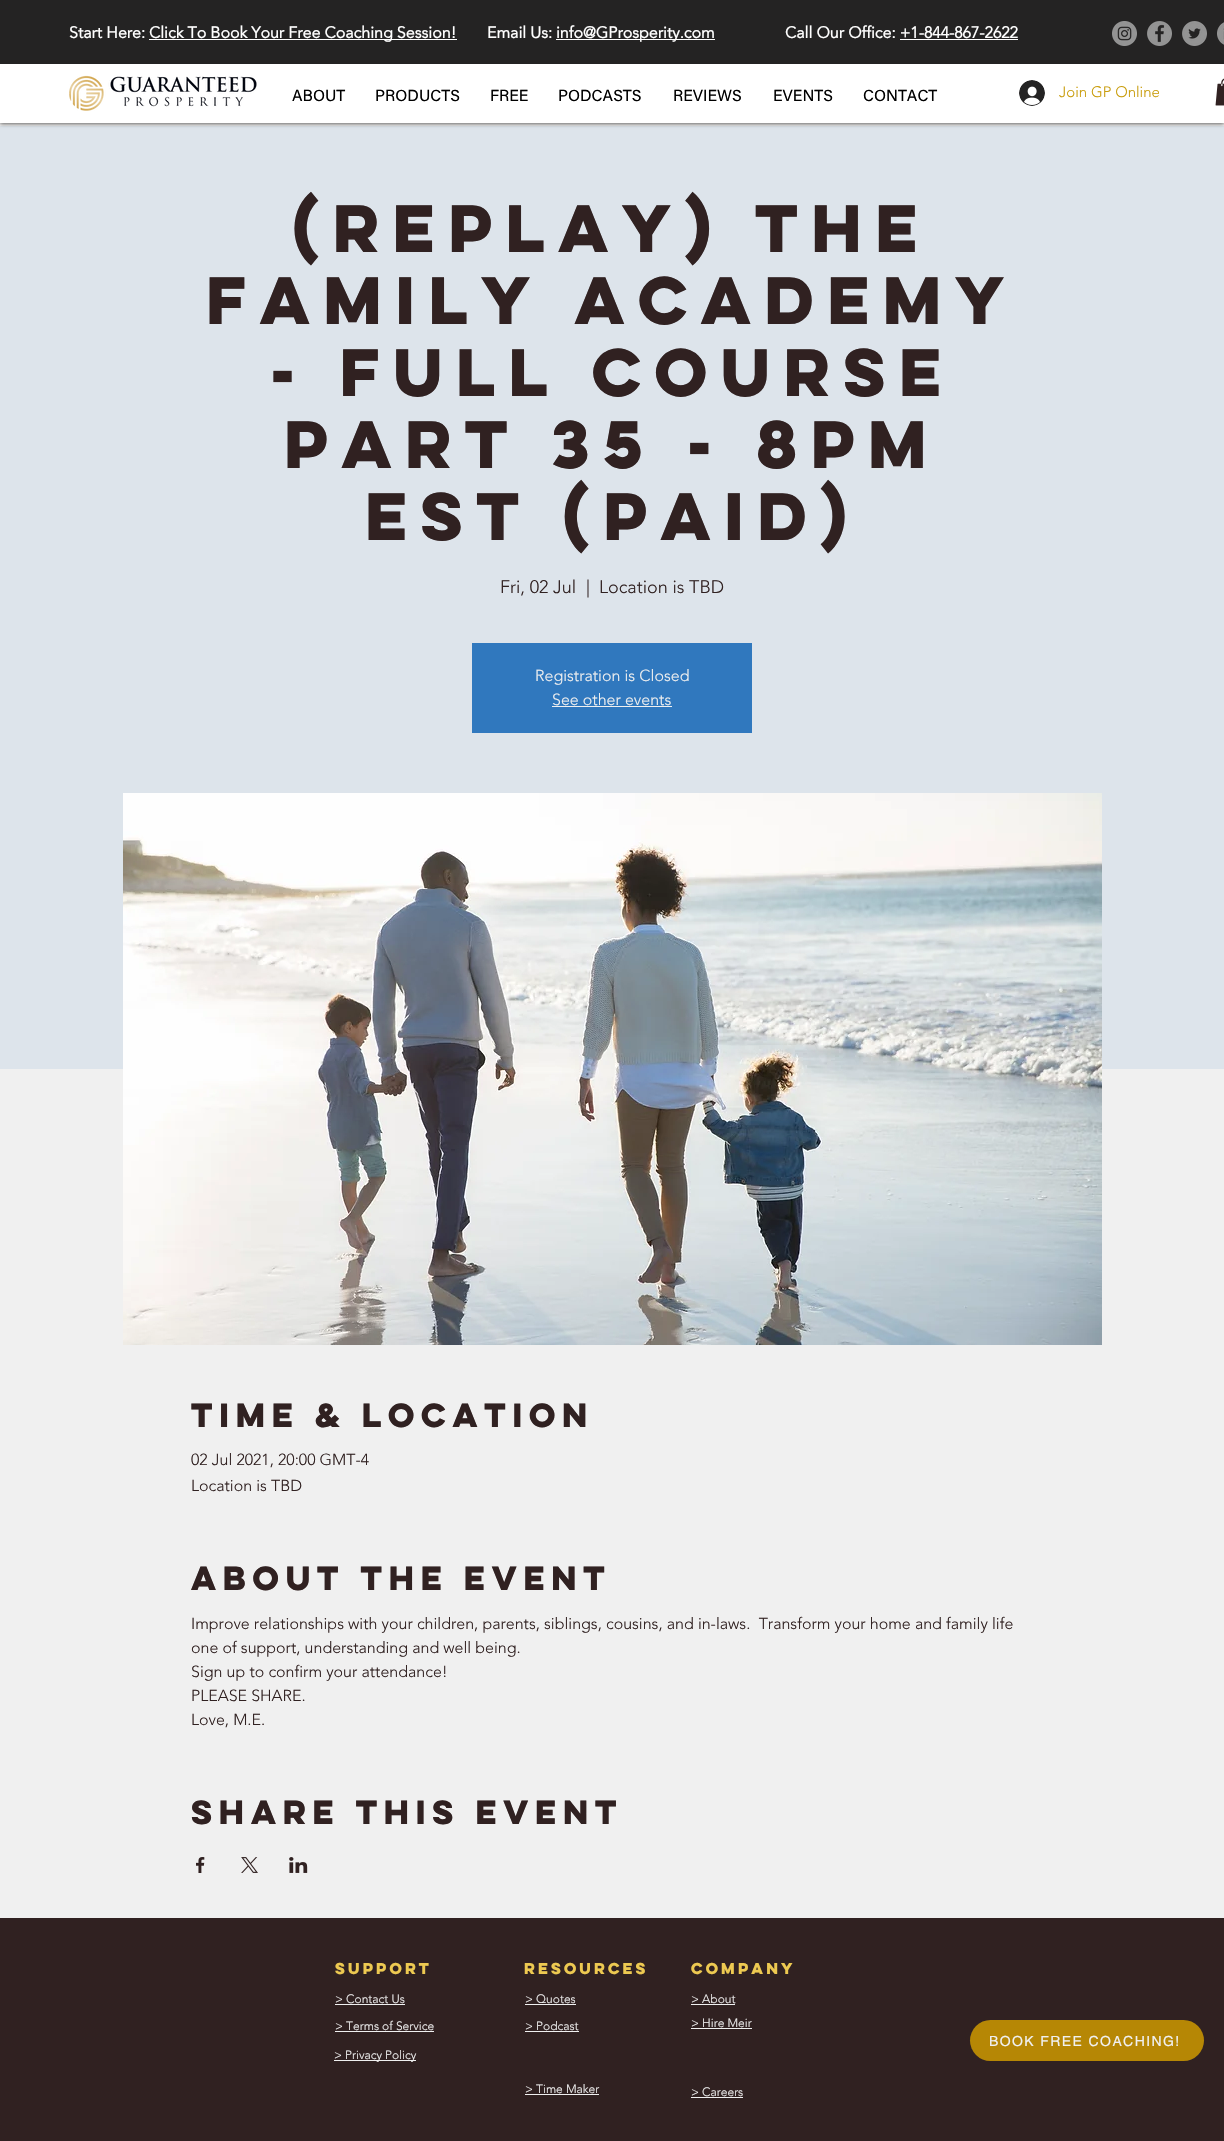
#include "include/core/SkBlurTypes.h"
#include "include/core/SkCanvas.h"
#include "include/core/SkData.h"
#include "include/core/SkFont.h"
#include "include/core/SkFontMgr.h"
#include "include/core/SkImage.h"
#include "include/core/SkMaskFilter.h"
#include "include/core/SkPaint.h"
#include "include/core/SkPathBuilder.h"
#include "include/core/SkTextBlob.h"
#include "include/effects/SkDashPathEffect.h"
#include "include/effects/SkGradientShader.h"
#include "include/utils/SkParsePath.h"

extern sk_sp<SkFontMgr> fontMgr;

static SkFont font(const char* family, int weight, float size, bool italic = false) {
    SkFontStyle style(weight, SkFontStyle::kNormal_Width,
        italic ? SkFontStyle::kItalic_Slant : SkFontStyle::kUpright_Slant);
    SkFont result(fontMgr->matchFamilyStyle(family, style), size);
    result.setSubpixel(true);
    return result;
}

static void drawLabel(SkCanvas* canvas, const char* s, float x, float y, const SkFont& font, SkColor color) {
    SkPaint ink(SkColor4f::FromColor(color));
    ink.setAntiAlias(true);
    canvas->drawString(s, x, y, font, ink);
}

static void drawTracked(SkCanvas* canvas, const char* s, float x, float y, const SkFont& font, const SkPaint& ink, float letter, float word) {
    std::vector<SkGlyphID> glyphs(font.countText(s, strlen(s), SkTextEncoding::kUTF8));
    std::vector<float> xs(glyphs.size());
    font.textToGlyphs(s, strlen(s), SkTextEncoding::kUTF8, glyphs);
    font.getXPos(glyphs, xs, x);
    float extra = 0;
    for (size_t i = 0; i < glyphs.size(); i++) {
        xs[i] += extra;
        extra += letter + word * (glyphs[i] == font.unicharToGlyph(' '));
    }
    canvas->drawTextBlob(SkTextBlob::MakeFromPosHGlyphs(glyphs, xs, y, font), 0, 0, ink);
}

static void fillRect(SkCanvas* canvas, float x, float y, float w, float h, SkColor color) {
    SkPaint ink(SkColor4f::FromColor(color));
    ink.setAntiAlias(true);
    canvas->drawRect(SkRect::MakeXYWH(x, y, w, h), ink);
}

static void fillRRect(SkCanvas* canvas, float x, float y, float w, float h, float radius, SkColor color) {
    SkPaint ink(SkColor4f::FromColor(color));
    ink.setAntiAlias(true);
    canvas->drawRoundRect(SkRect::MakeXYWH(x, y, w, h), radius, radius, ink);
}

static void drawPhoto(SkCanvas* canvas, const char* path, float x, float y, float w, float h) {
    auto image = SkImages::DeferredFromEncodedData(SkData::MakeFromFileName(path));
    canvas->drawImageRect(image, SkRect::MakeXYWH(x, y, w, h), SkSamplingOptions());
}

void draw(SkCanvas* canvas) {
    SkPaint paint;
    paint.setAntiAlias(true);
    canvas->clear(0xFFF0F0F0);
    fillRect(canvas, 0, 126, 1224, 943, 0xFFDDE4EB);
    paint.setColor(0x99000000);
    paint.setMaskFilter(SkMaskFilter::MakeBlur(kNormal_SkBlurStyle, 2));
    canvas->drawRect(SkRect::MakeXYWH(0, 1, 1224, 123), paint);
    paint.setMaskFilter(nullptr);
    fillRect(canvas, 0, 64, 1224, 59, 0xFFFFFFFF);
    fillRect(canvas, 0, 0, 1224, 64, 0xFF242323);
    SkFont font1 = font("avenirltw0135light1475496", 700, 16);
    drawLabel(canvas, "Start Here:", 69, 38, font1, 0xFFFFFFFF);
    fillRect(canvas, 149, 39, 308, 1, 0xFFFFFFFF);
    drawLabel(canvas, "Click To Book Your Free Coaching Session!", 149, 38, font1, 0xFFFFFFFF);
    drawLabel(canvas, "Email Us:", 487, 38, font1, 0xFFFFFFFF);
    fillRect(canvas, 556, 39, 159, 1, 0xFFFFFFFF);
    drawLabel(canvas, "info@GProsperity.com", 556, 38, font1, 0xFFFFFFFF);
    drawLabel(canvas, "Call Our Office: +1-844-867-2622", 785, 38, font1, 0xFFFFFFFF);
    fillRect(canvas, 900, 39, 118, 1, 0xFFFFFFFF);
    drawPhoto(canvas, "assets/img1.png", 1112, 21, 25, 25);
    drawPhoto(canvas, "assets/img2.png", 1147, 21, 25, 25);
    drawPhoto(canvas, "assets/img3.png", 1182, 21, 25, 25);
    drawPhoto(canvas, "assets/img4.png", 1217, 22, 7, 23);
    drawPhoto(canvas, "assets/img5.png", 69, 75, 188, 36);
    SkFont font2 = font("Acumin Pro", 400, 16);
    drawLabel(canvas, "ABOUT", 292, 101, font2, 0xFF000000);
    drawLabel(canvas, "PRODUCTS", 375, 101, font2, 0xFF000000);
    drawLabel(canvas, "FREE", 490, 101, font2, 0xFF000000);
    drawLabel(canvas, "PODCASTS", 558, 101, font2, 0xFF000000);
    drawLabel(canvas, "REVIEWS", 673, 101, font2, 0xFF000000);
    drawLabel(canvas, "EVENTS", 773, 101, font2, 0xFF000000);
    drawLabel(canvas, "CONTACT", 863, 101, font2, 0xFF000000);
    drawPhoto(canvas, "assets/img6.png", 1019, 80, 26, 26);
    SkFont font3 = font("avenirltw0135light1475496", 300, 15);
    drawLabel(canvas, "Join GP Online", 1059, 97, font3, 0xFFC99D0C);
    drawPhoto(canvas, "assets/img7.png", 1215, 78, 9, 28);
    SkFont font4 = font("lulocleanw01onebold", 700, 60);
    drawLabel(canvas, "(REPLAY) The", 293, 252, font4, 0xFF302121);
    drawLabel(canvas, "Family Academy", 206, 324, font4, 0xFF302121);
    drawLabel(canvas, "- Full Course", 270, 396, font4, 0xFF302121);
    drawLabel(canvas, "Part 35 - 8PM", 284, 468, font4, 0xFF302121);
    drawLabel(canvas, "EST (Paid)", 365, 540, font4, 0xFF302121);
    SkFont font5 = font("avenirltw0135light1475496", 300, 18);
    drawLabel(canvas, "Fri, 02 Jul", 500, 593, font5, 0xFF302121);
    drawLabel(canvas, "|", 586, 593, font5, 0xFF302121);
    drawLabel(canvas, "Location is TBD", 599, 593, font5, 0xFF302121);
    fillRect(canvas, 472, 643, 280, 90, 0xFF3078BE);
    SkFont font6 = font("avenirltw0135light1475496", 300, 16);
    drawLabel(canvas, "Registration is Closed", 535, 681, font6, 0xFFF0F0F0);
    drawLabel(canvas, "See other events", 552, 705, font6, 0xFFF0F0F0);
    fillRect(canvas, 552, 706, 120, 1, 0xFFF0F0F0);
    drawPhoto(canvas, "assets/img8.png", 123, 793, 979, 552);
    SkFont font7 = font("lulocleanw01onebold", 700, 30);
    drawLabel(canvas, "Time & Location", 191, 1427, font7, 0xFF302121);
    drawLabel(canvas, "02 Jul 2021, 20:00 GMT-4", 191, 1465, font6, 0xFF302121);
    drawLabel(canvas, "Location is TBD", 191, 1491, font6, 0xFF302121);
    drawLabel(canvas, "About the event", 191, 1590, font7, 0xFF302121);
    drawLabel(canvas, "Improve relationships with your children, parents, siblings, cousins, and in-laws.  Transform your home and family life", 191, 1629, font6, 0xFF302121);
    drawLabel(canvas, "one of support, understanding and well being.", 191, 1653, font6, 0xFF302121);
    drawLabel(canvas, "Sign up to confirm your attendance!", 191, 1677, font6, 0xFF302121);
    drawLabel(canvas, "PLEASE SHARE.", 191, 1701, font6, 0xFF302121);
    drawLabel(canvas, "Love, M.E.", 191, 1725, font6, 0xFF302121);
    drawLabel(canvas, "Share this event", 191, 1824, font7, 0xFF302121);
    drawPhoto(canvas, "assets/img9.png", 196, 1857, 9, 16);
    drawPhoto(canvas, "assets/img10.png", 241, 1857, 17, 16);
    drawPhoto(canvas, "assets/img11.png", 289, 1857, 19, 16);
    fillRect(canvas, 0, 1918, 1224, 223, 0xFF302121);
    SkFont font8 = font("lulocleanw01onebold", 700, 14);
    drawLabel(canvas, "SUPPORT", 335, 1974, font8, 0xFFEDC951);
    drawLabel(canvas, "RESOURCES", 524, 1974, font8, 0xFFEDC951);
    drawLabel(canvas, "Company", 691, 1974, font8, 0xFFEDC951);
    SkFont font9 = font("avenirltw0135light1475496", 300, 12);
    drawLabel(canvas, "> Contact Us", 335, 2003, font9, 0xFFF0F0F0);
    fillRect(canvas, 335, 2004, 70, 1, 0xFFF0F0F0);
    drawLabel(canvas, "> Quotes", 525, 2003, font9, 0xFFF0F0F0);
    fillRect(canvas, 525, 2004, 51, 1, 0xFFF0F0F0);
    drawLabel(canvas, "> About", 691, 2003, font9, 0xFFF0F0F0);
    fillRect(canvas, 691, 2004, 44, 1, 0xFFF0F0F0);
    drawLabel(canvas, "> Terms of Service", 335, 2030, font9, 0xFFF0F0F0);
    fillRect(canvas, 335, 2031, 99, 1, 0xFFF0F0F0);
    drawLabel(canvas, "> Podcast", 525, 2030, font9, 0xFFF0F0F0);
    fillRect(canvas, 525, 2031, 54, 1, 0xFFF0F0F0);
    drawLabel(canvas, "> Hire Meir", 691, 2027, font9, 0xFFF0F0F0);
    fillRect(canvas, 691, 2028, 61, 1, 0xFFF0F0F0);
    drawLabel(canvas, "> Time Maker", 525, 2093, font9, 0xFFF0F0F0);
    fillRect(canvas, 525, 2094, 74, 1, 0xFFF0F0F0);
    drawLabel(canvas, "> Careers", 691, 2096, font9, 0xFFF0F0F0);
    fillRect(canvas, 691, 2097, 52, 1, 0xFFF0F0F0);
    fillRect(canvas, 334, 2060, 82, 1, 0xFFF0F0F0);
    drawLabel(canvas, "> Privacy Policy", 334, 2059, font9, 0xFFF0F0F0);
    fillRRect(canvas, 970, 2020, 234, 41, 20.5f, 0xFFB68705);
    SkFont font10 = font("helvetica", 400, 14);
    paint.setColor(0xFFF0F0F0);
    drawTracked(canvas, "BOOK FREE COACHING!", 989, 2046, font10, paint, 1.4f, 0);
}
